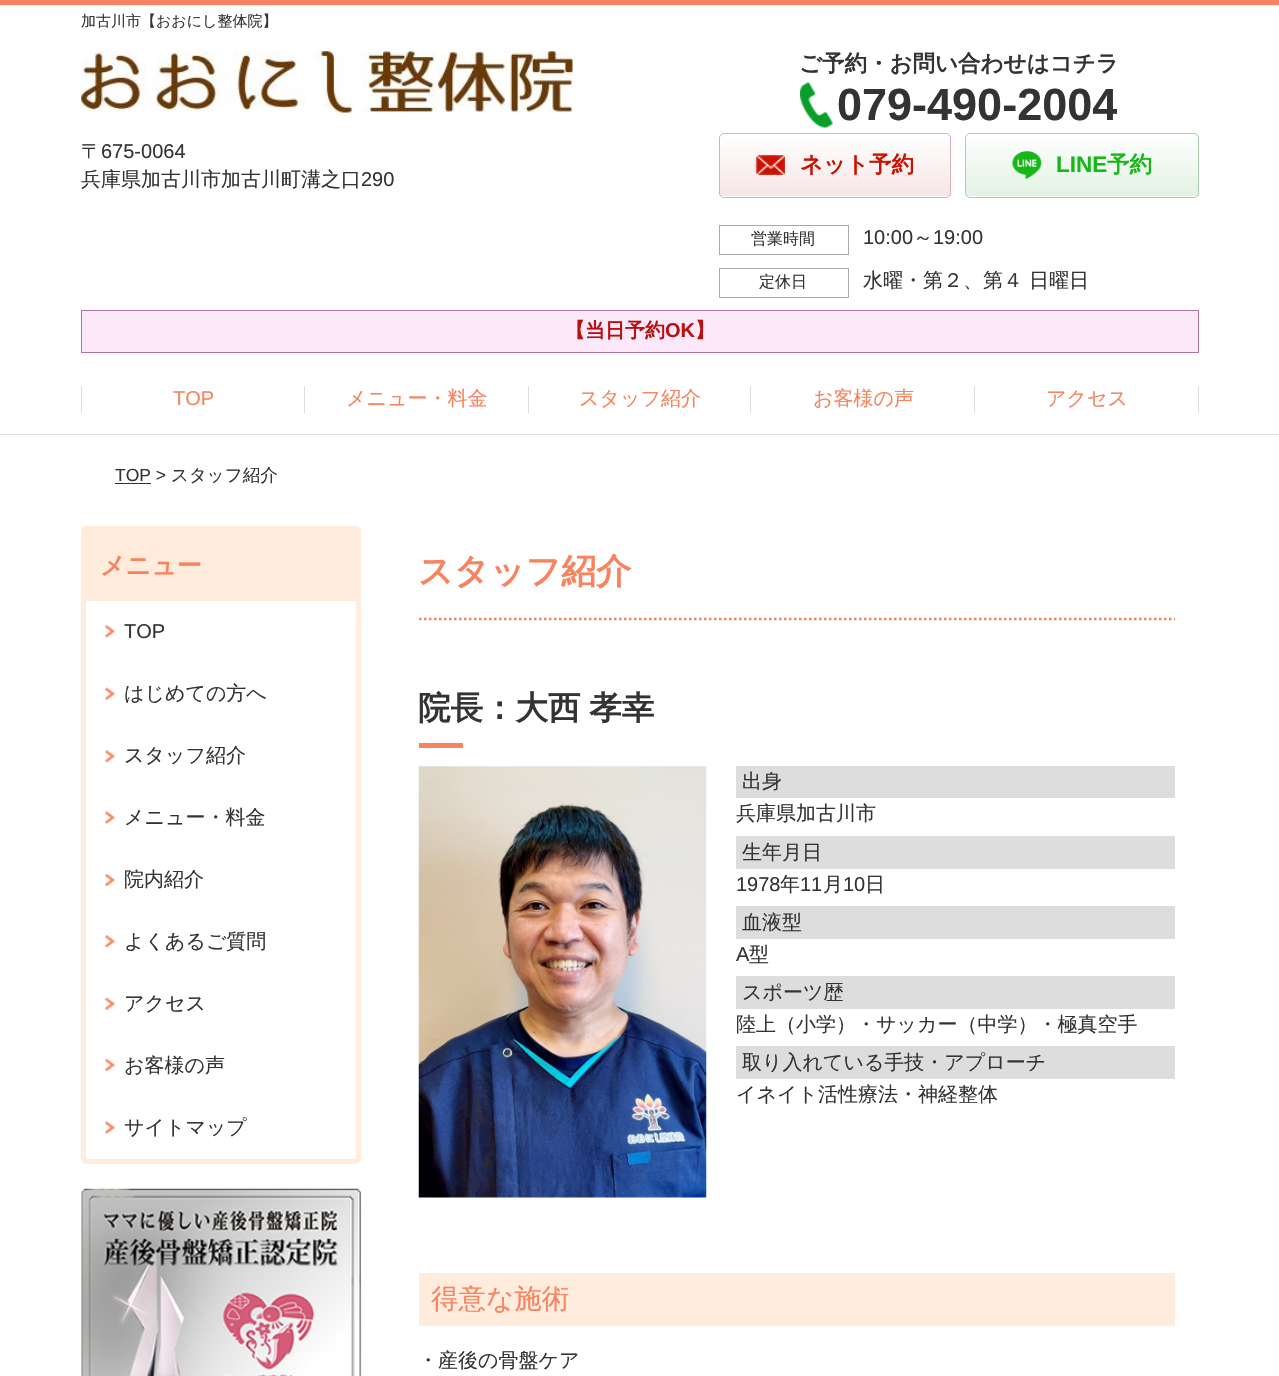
#include "include/core/SkBlurTypes.h"
#include "include/core/SkCanvas.h"
#include "include/core/SkData.h"
#include "include/core/SkFont.h"
#include "include/core/SkFontMgr.h"
#include "include/core/SkImage.h"
#include "include/core/SkMaskFilter.h"
#include "include/core/SkPaint.h"
#include "include/core/SkPathBuilder.h"
#include "include/core/SkTextBlob.h"
#include "include/effects/SkDashPathEffect.h"
#include "include/effects/SkGradientShader.h"
#include "include/utils/SkParsePath.h"

extern sk_sp<SkFontMgr> fontMgr;

static SkFont font(const char* family, int weight, float size, bool italic = false) {
    SkFontStyle style(weight, SkFontStyle::kNormal_Width,
        italic ? SkFontStyle::kItalic_Slant : SkFontStyle::kUpright_Slant);
    SkFont result(fontMgr->matchFamilyStyle(family, style), size);
    result.setSubpixel(true);
    return result;
}

static void drawLabel(SkCanvas* canvas, const char* s, float x, float y, const SkFont& font, SkColor color) {
    SkPaint ink(SkColor4f::FromColor(color));
    ink.setAntiAlias(true);
    canvas->drawString(s, x, y, font, ink);
}

static void drawTracked(SkCanvas* canvas, const char* s, float x, float y, const SkFont& font, const SkPaint& ink, float letter, float word) {
    std::vector<SkGlyphID> glyphs(font.countText(s, strlen(s), SkTextEncoding::kUTF8));
    std::vector<float> xs(glyphs.size());
    font.textToGlyphs(s, strlen(s), SkTextEncoding::kUTF8, glyphs);
    font.getXPos(glyphs, xs, x);
    float extra = 0;
    for (size_t i = 0; i < glyphs.size(); i++) {
        xs[i] += extra;
        extra += letter + word * (glyphs[i] == font.unicharToGlyph(' '));
    }
    canvas->drawTextBlob(SkTextBlob::MakeFromPosHGlyphs(glyphs, xs, y, font), 0, 0, ink);
}

static void fillRect(SkCanvas* canvas, float x, float y, float w, float h, SkColor color) {
    SkPaint ink(SkColor4f::FromColor(color));
    ink.setAntiAlias(true);
    canvas->drawRect(SkRect::MakeXYWH(x, y, w, h), ink);
}

static void drawPhoto(SkCanvas* canvas, const char* path, float x, float y, float w, float h) {
    auto image = SkImages::DeferredFromEncodedData(SkData::MakeFromFileName(path));
    canvas->drawImageRect(image, SkRect::MakeXYWH(x, y, w, h), SkSamplingOptions());
}

static SkPath parsePath(const char* data, bool evenOdd = false) {
    SkPath result = *SkParsePath::FromSVGString(data);
    if (evenOdd) result.setFillType(SkPathFillType::kEvenOdd);
    return result;
}

void draw(SkCanvas* canvas) {
    SkPaint paint;
    paint.setAntiAlias(true);
    canvas->clear(0xFFFFFFFF);
    fillRect(canvas, 0, 0, 1279, 5, 0xFFF7835F);
    SkFont font1 = font("WenQuanYi Zen Hei", 500, 15);
    drawLabel(canvas, "加古川市【おおにし整体院】", 81, 26, font1, 0xFF333333);
    drawPhoto(canvas, "assets/img1.png", 81, 51, 492, 62);
    SkFont font2 = font("WenQuanYi Zen Hei", 500, 20);
    drawLabel(canvas, "〒", 81, 158, font2, 0xFF333333);
    SkFont font3 = font("Liberation Sans", 400, 20);
    drawLabel(canvas, "675-0064", 101, 158, font3, 0xFF333333);
    drawLabel(canvas, "兵庫県加古川市加古川町溝之口", 81, 186, font2, 0xFF333333);
    drawLabel(canvas, "290", 361, 186, font3, 0xFF333333);
    SkFont font4 = font("WenQuanYi Zen Hei", 700, 22.5f);
    drawLabel(canvas, "ご予約・お問い合わせはコチラ", 799, 71, font4, 0xFF333333);
    drawPhoto(canvas, "assets/img2.png", 800, 82, 33, 46);
    SkFont font5 = font("Liberation Sans", 700, 45);
    drawLabel(canvas, "079-490-2004", 837, 120, font5, 0xFF333333);
    canvas->save();
    canvas->clipPath(parsePath("M724 133H946C949 133 951 135 951 138V193C951 196 949 198 946 198H724C721 198 719 196 719 193V138C719 135 721 133 724 133Z"), true);
    {
        const SkColor colors[] = {0xFFFFFFFF, 0xFFF5E6E5};
        const float stops[] = {0, 1};
        const SkPoint ends[] = {{835, 134}, {835, 196}};
        paint.setShader(SkGradientShader::MakeLinear(ends, colors, stops, 2, SkTileMode::kClamp));
        paint.setAlpha(255);
    }
    canvas->drawRect(SkRect::MakeXYWH(719, 134, 232, 62), paint);
    canvas->restore();
    paint.setStroke(true);
    paint.setStrokeWidth(1);
    paint.setShader(nullptr);
    paint.setColor(0xFFD8B0AD);
    canvas->drawRoundRect(SkRect::MakeXYWH(719.5f, 133.5f, 231, 64), 4.5f, 4.5f, paint);
    drawPhoto(canvas, "assets/img3.png", 756, 155, 29, 20);
    drawLabel(canvas, "ネット予約", 800, 172, font4, 0xFFCC1100);
    canvas->save();
    canvas->clipPath(parsePath("M970 133H1194C1197 133 1199 135 1199 138V193C1199 196 1197 198 1194 198H970C967 198 965 196 965 193V138C965 135 967 133 970 133Z"), true);
    paint.setStroke(false);
    {
        const SkColor colors[] = {0xFFFFFFFF, 0xFFE2F2E3};
        const float stops[] = {0, 1};
        const SkPoint ends[] = {{1082, 134}, {1082, 196}};
        paint.setShader(SkGradientShader::MakeLinear(ends, colors, stops, 2, SkTileMode::kClamp));
        paint.setAlpha(255);
    }
    canvas->drawRect(SkRect::MakeXYWH(965, 134, 234, 62), paint);
    canvas->restore();
    paint.setStroke(true);
    paint.setShader(nullptr);
    paint.setColor(0xFFABCBAE);
    canvas->drawRoundRect(SkRect::MakeXYWH(965.5f, 133.5f, 233, 64), 4.5f, 4.5f, paint);
    drawPhoto(canvas, "assets/img4.png", 1012, 151, 30, 28);
    SkFont font6 = font("Liberation Sans", 700, 22.5f);
    drawLabel(canvas, "LINE", 1056, 172, font6, 0xFF15B817);
    drawLabel(canvas, "予約", 1107, 172, font4, 0xFF15B817);
    paint.setColor(0xFFAAAAAA);
    canvas->drawRect(SkRect::MakeXYWH(719.5f, 225.5f, 129, 29), paint);
    SkFont font7 = font("WenQuanYi Zen Hei", 500, 16);
    drawLabel(canvas, "営業時間", 751, 244, font7, 0xFF333333);
    drawLabel(canvas, "10:00", 863, 244, font3, 0xFF333333);
    drawLabel(canvas, "～", 913, 244, font2, 0xFF333333);
    drawLabel(canvas, "19:00", 933, 244, font3, 0xFF333333);
    canvas->drawRect(SkRect::MakeXYWH(719.5f, 268.5f, 129, 29), paint);
    drawLabel(canvas, "定休日", 759, 287, font7, 0xFF333333);
    drawLabel(canvas, "水曜・第２、第４ 日曜日", 863, 287, font2, 0xFF333333);
    paint.setStroke(false);
    paint.setColor(0xFFFBE9F9);
    canvas->drawRect(SkRect::MakeXYWH(81.5f, 310.5f, 1117, 42), paint);
    paint.setStroke(true);
    paint.setColor(0xFFAF779C);
    canvas->drawRect(SkRect::MakeXYWH(81.5f, 310.5f, 1117, 42), paint);
    SkFont font8 = font("WenQuanYi Zen Hei", 700, 20);
    drawLabel(canvas, "【当日予約", 565, 337, font8, 0xFFBB0F0F);
    SkFont font9 = font("Liberation Sans", 700, 20);
    drawLabel(canvas, "OK", 665, 337, font9, 0xFFBB0F0F);
    drawLabel(canvas, "】", 695, 337, font8, 0xFFBB0F0F);
    fillRect(canvas, 0, 434, 1279, 1, 0xFFDDDDDD);
    fillRect(canvas, 81, 386, 1, 27, 0xFFDDDDDD);
    drawLabel(canvas, "TOP", 173, 405, font3, 0xFFF7835F);
    fillRect(canvas, 304, 386, 1, 27, 0xFFDDDDDD);
    drawLabel(canvas, "メニュー・料金", 346, 405, font2, 0xFFF7835F);
    fillRect(canvas, 528, 386, 1, 27, 0xFFDDDDDD);
    drawLabel(canvas, "スタッフ紹介", 579, 405, font2, 0xFFF7835F);
    fillRect(canvas, 750, 386, 1, 27, 0xFFDDDDDD);
    drawLabel(canvas, "お客様の声", 813, 405, font2, 0xFFF7835F);
    fillRect(canvas, 974, 386, 1, 27, 0xFFDDDDDD);
    drawLabel(canvas, "アクセス", 1046, 405, font2, 0xFFF7835F);
    fillRect(canvas, 1198, 386, 1, 27, 0xFFDDDDDD);
    SkFont font10 = font("Liberation Sans", 400, 17.5f);
    drawLabel(canvas, "TOP >", 115, 481, font10, 0xFF333333);
    fillRect(canvas, 115, 483, 36, 1, 0xFF333333);
    SkFont font11 = font("WenQuanYi Zen Hei", 500, 17.5f);
    drawLabel(canvas, "スタッフ紹介", 171, 481, font11, 0xFF333333);
    paint.setStroke(false);
    paint.setColor(0xFFFFECDC);
    canvas->drawRoundRect(SkRect::MakeXYWH(83.5f, 528.5f, 275, 633), 2.5f, 2.5f, paint);
    paint.setStroke(true);
    paint.setStrokeWidth(5);
    canvas->drawRoundRect(SkRect::MakeXYWH(83.5f, 528.5f, 275, 633), 2.5f, 2.5f, paint);
    SkFont font12 = font("WenQuanYi Zen Hei", 700, 25);
    drawLabel(canvas, "メニュー", 100, 574, font12, 0xFFF7835F);
    fillRect(canvas, 86, 601, 270, 558, 0xFFFFFFFF);
    drawPhoto(canvas, "assets/img5.png", 105, 625, 10, 13);
    drawLabel(canvas, "TOP", 124, 638, font3, 0xFF333333);
    drawPhoto(canvas, "assets/img6.png", 105, 687, 10, 13);
    drawLabel(canvas, "はじめての方へ", 124, 700, font2, 0xFF333333);
    drawPhoto(canvas, "assets/img5.png", 105, 750, 10, 13);
    drawLabel(canvas, "スタッフ紹介", 124, 762, font2, 0xFF333333);
    drawPhoto(canvas, "assets/img7.png", 105, 811, 10, 13);
    drawLabel(canvas, "メニュー・料金", 124, 824, font2, 0xFF333333);
    drawPhoto(canvas, "assets/img8.png", 105, 873, 10, 14);
    drawLabel(canvas, "院内紹介", 124, 886, font2, 0xFF333333);
    drawPhoto(canvas, "assets/img5.png", 105, 935, 10, 13);
    drawLabel(canvas, "よくあるご質問", 124, 948, font2, 0xFF333333);
    drawPhoto(canvas, "assets/img6.png", 105, 997, 10, 13);
    drawLabel(canvas, "アクセス", 124, 1010, font2, 0xFF333333);
    drawPhoto(canvas, "assets/img8.png", 105, 1058, 10, 14);
    drawLabel(canvas, "お客様の声", 124, 1072, font2, 0xFF333333);
    drawPhoto(canvas, "assets/img7.png", 105, 1121, 10, 13);
    drawLabel(canvas, "サイトマップ", 124, 1134, font2, 0xFF333333);
    drawPhoto(canvas, "assets/img9.png", 81, 1188, 281, 188);
    paint.setStrokeWidth(2.5f);
    paint.setColor(0xFFF7835F);
    paint.setPathEffect(SkDashPathEffect::Make({{2.5f, 2.5f}}, 0));
    canvas->drawPath(parsePath("M419 619H1175"), paint);
    paint.setPathEffect(nullptr);
    SkFont font13 = font("WenQuanYi Zen Hei", 700, 35);
    drawLabel(canvas, "スタッフ紹介", 418, 583, font13, 0xFFF7835F);
    SkFont font14 = font("WenQuanYi Zen Hei", 700, 32.5f);
    paint.setStroke(false);
    paint.setColor(0xFF333333);
    drawTracked(canvas, "院長：大西 孝幸", 418, 719, font14, paint, 0, -1);
    fillRect(canvas, 419, 743, 44, 5, 0xFFF7835F);
    drawPhoto(canvas, "assets/img10.png", 418, 766, 289, 432);
    fillRect(canvas, 736, 766, 439, 32, 0xFFDDDDDD);
    drawLabel(canvas, "出身", 742, 788, font2, 0xFF333333);
    drawLabel(canvas, "兵庫県加古川市", 736, 820, font2, 0xFF333333);
    fillRect(canvas, 736, 836, 439, 33, 0xFFDDDDDD);
    drawLabel(canvas, "生年月日", 742, 859, font2, 0xFF333333);
    drawLabel(canvas, "1978", 736, 891, font3, 0xFF333333);
    drawLabel(canvas, "年", 780, 891, font2, 0xFF333333);
    drawLabel(canvas, "11", 800, 891, font3, 0xFF333333);
    drawLabel(canvas, "月", 823, 891, font2, 0xFF333333);
    drawLabel(canvas, "10", 843, 891, font3, 0xFF333333);
    drawLabel(canvas, "日", 865, 891, font2, 0xFF333333);
    fillRect(canvas, 736, 906, 439, 33, 0xFFDDDDDD);
    drawLabel(canvas, "血液型", 742, 929, font2, 0xFF333333);
    drawLabel(canvas, "A", 736, 961, font3, 0xFF333333);
    drawLabel(canvas, "型", 749, 961, font2, 0xFF333333);
    fillRect(canvas, 736, 976, 439, 33, 0xFFDDDDDD);
    drawLabel(canvas, "スポーツ歴", 742, 999, font2, 0xFF333333);
    drawLabel(canvas, "陸上（小学）・サッカー（中学）・極真空手", 736, 1031, font2, 0xFF333333);
    fillRect(canvas, 736, 1046, 439, 33, 0xFFDDDDDD);
    drawLabel(canvas, "取り入れている手技・アプローチ", 742, 1069, font2, 0xFF333333);
    drawLabel(canvas, "イネイト活性療法・神経整体", 736, 1101, font2, 0xFF333333);
    fillRect(canvas, 419, 1273, 756, 53, 0xFFFFECDC);
    SkFont font15 = font("WenQuanYi Zen Hei", 500, 27.5f);
    drawLabel(canvas, "得意な施術", 431, 1308, font15, 0xFFF7835F);
    drawLabel(canvas, "・産後の骨盤ケア", 418, 1367, font2, 0xFF333333);
}
